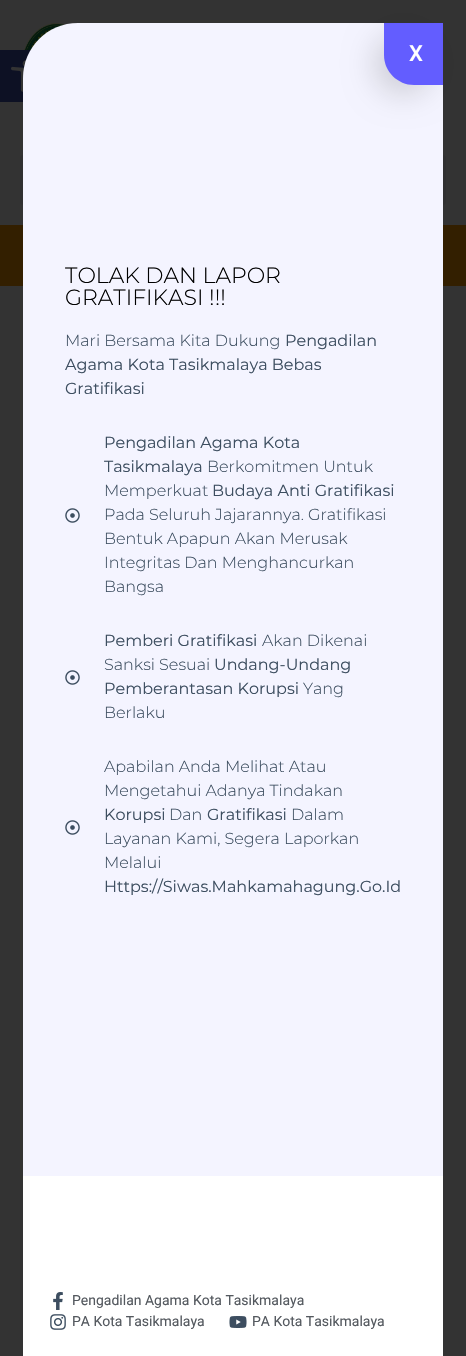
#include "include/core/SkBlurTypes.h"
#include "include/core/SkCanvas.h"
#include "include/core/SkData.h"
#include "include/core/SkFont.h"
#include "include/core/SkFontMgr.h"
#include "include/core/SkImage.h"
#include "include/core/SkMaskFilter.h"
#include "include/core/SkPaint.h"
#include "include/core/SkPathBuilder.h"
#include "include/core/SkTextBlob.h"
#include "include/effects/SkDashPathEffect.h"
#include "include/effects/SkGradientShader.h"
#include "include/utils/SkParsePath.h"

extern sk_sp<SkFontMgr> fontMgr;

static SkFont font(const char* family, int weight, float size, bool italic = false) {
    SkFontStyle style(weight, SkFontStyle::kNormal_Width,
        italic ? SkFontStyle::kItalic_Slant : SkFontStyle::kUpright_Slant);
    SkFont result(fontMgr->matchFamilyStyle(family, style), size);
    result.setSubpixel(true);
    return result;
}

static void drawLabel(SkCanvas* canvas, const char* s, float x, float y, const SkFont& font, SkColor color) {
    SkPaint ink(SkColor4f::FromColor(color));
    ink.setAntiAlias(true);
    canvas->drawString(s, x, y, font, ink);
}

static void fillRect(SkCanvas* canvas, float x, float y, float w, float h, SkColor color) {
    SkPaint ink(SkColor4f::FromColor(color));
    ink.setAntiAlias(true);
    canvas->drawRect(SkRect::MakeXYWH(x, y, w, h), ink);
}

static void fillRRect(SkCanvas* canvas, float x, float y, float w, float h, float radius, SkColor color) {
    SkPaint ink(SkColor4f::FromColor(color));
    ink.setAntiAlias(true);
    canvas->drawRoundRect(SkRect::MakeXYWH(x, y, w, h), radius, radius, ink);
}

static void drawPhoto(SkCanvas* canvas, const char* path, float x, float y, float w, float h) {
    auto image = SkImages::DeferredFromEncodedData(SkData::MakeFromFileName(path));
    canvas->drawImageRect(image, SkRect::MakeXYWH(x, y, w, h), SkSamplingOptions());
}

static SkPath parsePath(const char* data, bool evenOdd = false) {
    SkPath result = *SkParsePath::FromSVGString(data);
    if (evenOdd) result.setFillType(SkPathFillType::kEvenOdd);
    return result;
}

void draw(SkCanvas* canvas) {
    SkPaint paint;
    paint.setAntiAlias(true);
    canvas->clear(0xFF333333);
    drawPhoto(canvas, "assets/img1.png", 24, 23, 43, 27);
    fillRRect(canvas, 20, 155, 426, 50, 3, 0xFF303031);
    fillRect(canvas, 0, 225, 466, 61, 0xFF331F00);
    fillRect(canvas, 0, 50, 31, 52, 0xFF0D1124);
    drawPhoto(canvas, "assets/img2.png", 11, 60, 16, 32);
    paint.setColor(0xFFF4F4FF);
    canvas->drawPath(parsePath("M78 23H443V1176H23V78C23 47.5 47.5 23 78 23Z"), paint);
    paint.setColor(0x26000000);
    paint.setMaskFilter(SkMaskFilter::MakeBlur(kNormal_SkBlurStyle, 15));
    canvas->drawRoundRect(SkRect::MakeXYWH(374, 33, 59, 62), 30, 30, paint);
    paint.setMaskFilter(nullptr);
    paint.setColor(0xFF635DFF);
    canvas->drawPath(parsePath("M384 23H443V85H414C397.5 85 384 71.5 384 55Z"), paint);
    SkFont font1 = font("Roboto", 500, 22);
    drawLabel(canvas, "X", 409, 61, font1, 0xFFFFFFFF);
    SkFont font2 = font("Montserrat", 300, 22);
    drawLabel(canvas, "TOLAK DAN LAPOR", 65, 283, font2, 0xFF000000);
    drawLabel(canvas, "GRATIFIKASI !!!", 65, 305, font2, 0xFF000000);
    SkFont font3 = font("Montserrat", 300, 16);
    drawLabel(canvas, "Mari Bersama Kita Dukung", 65, 346, font3, 0xFF3D4E60);
    SkFont font4 = font("Montserrat", 400, 16);
    drawLabel(canvas, "Pengadilan", 285, 346, font4, 0xFF3D4E60);
    drawLabel(canvas, "Agama Kota Tasikmalaya Bebas", 65, 370, font4, 0xFF3D4E60);
    drawLabel(canvas, "Gratifikasi", 65, 394, font4, 0xFF3D4E60);
    drawPhoto(canvas, "assets/img3.png", 65, 508, 15, 15);
    drawLabel(canvas, "Pengadilan Agama Kota", 104, 448, font4, 0xFF3D4E60);
    drawLabel(canvas, "Tasikmalaya", 104, 472, font4, 0xFF3D4E60);
    drawLabel(canvas, "Berkomitmen Untuk", 207, 472, font3, 0xFF3D4E60);
    drawLabel(canvas, "Memperkuat", 104, 496, font3, 0xFF3D4E60);
    drawLabel(canvas, "Budaya Anti Gratifikasi", 212, 496, font4, 0xFF3D4E60);
    drawLabel(canvas, "Pada Seluruh Jajarannya. Gratifikasi", 104, 520, font3, 0xFF3D4E60);
    drawLabel(canvas, "Bentuk Apapun Akan Merusak", 104, 544, font3, 0xFF3D4E60);
    drawLabel(canvas, "Integritas Dan Menghancurkan", 104, 568, font3, 0xFF3D4E60);
    drawLabel(canvas, "Bangsa", 104, 592, font3, 0xFF3D4E60);
    drawPhoto(canvas, "assets/img3.png", 65, 670, 15, 15);
    drawLabel(canvas, "Pemberi Gratifikasi", 104, 646, font4, 0xFF3D4E60);
    drawLabel(canvas, "Akan Dikenai", 262, 646, font3, 0xFF3D4E60);
    drawLabel(canvas, "Sanksi Sesuai", 104, 670, font3, 0xFF3D4E60);
    drawLabel(canvas, "Undang-Undang", 214, 670, font4, 0xFF3D4E60);
    drawLabel(canvas, "Pemberantasan Korupsi", 104, 694, font4, 0xFF3D4E60);
    drawLabel(canvas, "Yang", 303, 694, font3, 0xFF3D4E60);
    drawLabel(canvas, "Berlaku", 104, 718, font3, 0xFF3D4E60);
    drawPhoto(canvas, "assets/img3.png", 65, 820, 15, 15);
    drawLabel(canvas, "Apabilan Anda Melihat Atau", 104, 772, font3, 0xFF3D4E60);
    drawLabel(canvas, "Mengetahui Adanya Tindakan", 104, 796, font3, 0xFF3D4E60);
    drawLabel(canvas, "Korupsi", 104, 820, font4, 0xFF3D4E60);
    drawLabel(canvas, "Dan", 169, 820, font3, 0xFF3D4E60);
    drawLabel(canvas, "Gratifikasi", 207, 820, font4, 0xFF3D4E60);
    drawLabel(canvas, "Dalam", 291, 820, font3, 0xFF3D4E60);
    drawLabel(canvas, "Layanan Kami, Segera Laporkan", 104, 844, font3, 0xFF3D4E60);
    drawLabel(canvas, "Melalui", 104, 868, font3, 0xFF3D4E60);
    drawLabel(canvas, "Https://Siwas.Mahkamahagung.Go.Id", 104, 892, font4, 0xFF3D4E60);
    fillRect(canvas, 23, 1176, 420, 180, 0xFFFFFFFF);
    drawPhoto(canvas, "assets/img4.png", 53, 1292, 10, 18);
    SkFont font5 = font("Roboto", 400, 14);
    drawLabel(canvas, "Pengadilan Agama Kota Tasikmalaya", 72, 1305, font5, 0xFF54595F);
    drawPhoto(canvas, "assets/img5.png", 50, 1314, 16, 16);
    drawLabel(canvas, "PA Kota Tasikmalaya", 72, 1326, font5, 0xFF54595F);
    drawPhoto(canvas, "assets/img6.png", 229, 1316, 18, 12);
    drawLabel(canvas, "PA Kota Tasikmalaya", 252, 1326, font5, 0xFF54595F);
}
